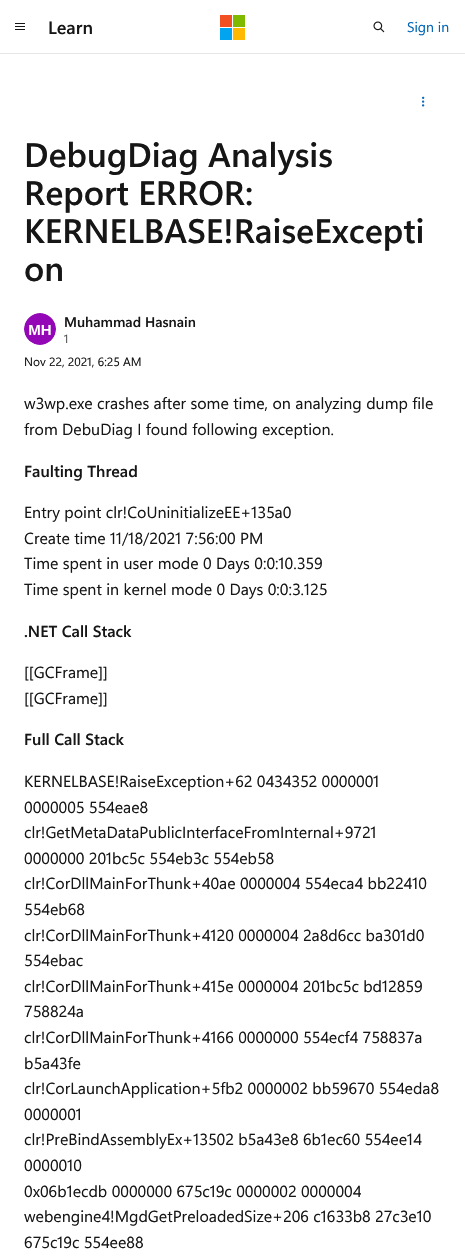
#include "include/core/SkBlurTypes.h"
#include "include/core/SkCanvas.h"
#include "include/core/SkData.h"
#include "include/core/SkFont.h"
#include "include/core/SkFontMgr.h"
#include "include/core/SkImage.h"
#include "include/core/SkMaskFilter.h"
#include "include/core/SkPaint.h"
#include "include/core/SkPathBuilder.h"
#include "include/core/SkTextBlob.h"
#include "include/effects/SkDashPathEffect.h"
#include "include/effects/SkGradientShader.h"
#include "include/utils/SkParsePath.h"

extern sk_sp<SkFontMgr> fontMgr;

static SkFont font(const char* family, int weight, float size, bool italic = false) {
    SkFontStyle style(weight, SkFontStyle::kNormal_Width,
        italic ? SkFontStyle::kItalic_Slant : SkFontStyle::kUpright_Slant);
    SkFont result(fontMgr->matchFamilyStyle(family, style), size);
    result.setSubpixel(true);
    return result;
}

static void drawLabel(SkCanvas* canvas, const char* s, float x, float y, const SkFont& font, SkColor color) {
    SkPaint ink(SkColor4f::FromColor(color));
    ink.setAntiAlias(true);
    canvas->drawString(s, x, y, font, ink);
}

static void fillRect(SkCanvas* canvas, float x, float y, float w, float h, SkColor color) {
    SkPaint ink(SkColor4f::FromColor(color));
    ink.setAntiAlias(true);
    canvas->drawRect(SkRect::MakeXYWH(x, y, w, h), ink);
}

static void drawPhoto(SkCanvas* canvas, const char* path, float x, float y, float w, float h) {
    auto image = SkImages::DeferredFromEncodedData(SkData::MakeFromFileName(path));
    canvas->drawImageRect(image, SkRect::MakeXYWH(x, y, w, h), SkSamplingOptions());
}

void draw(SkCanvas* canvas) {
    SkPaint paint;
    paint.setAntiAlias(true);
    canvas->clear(0xFFFFFFFF);
    fillRect(canvas, 0, 53, 465, 1, 0xFFE6E6E6);
    drawPhoto(canvas, "assets/img1.png", 15, 23, 10, 7);
    SkFont font1 = font("Segoe UI", 600, 18);
    drawLabel(canvas, "Learn", 48, 34, font1, 0xFF161616);
    fillRect(canvas, 220, 15, 12, 12, 0xFFF25022);
    fillRect(canvas, 233, 15, 12, 12, 0xFF7FBA00);
    fillRect(canvas, 220, 28, 12, 12, 0xFF00A4EF);
    fillRect(canvas, 233, 28, 12, 12, 0xFFFFB900);
    drawPhoto(canvas, "assets/img2.png", 373, 21, 12, 12);
    SkFont font2 = font("Segoe UI", 400, 14);
    drawLabel(canvas, "Sign in", 407, 32, font2, 0xFF0065B3);
    drawPhoto(canvas, "assets/img3.png", 422, 96, 3, 11);
    SkFont font3 = font("Segoe UI", 600, 34);
    drawLabel(canvas, "DebugDiag Analysis", 24, 167, font3, 0xFF161616);
    drawLabel(canvas, "Report ERROR:", 24, 205, font3, 0xFF161616);
    drawLabel(canvas, "KERNELBASE!RaiseExcepti", 24, 243, font3, 0xFF161616);
    drawLabel(canvas, "on", 24, 281, font3, 0xFF161616);
    paint.setColor(0xFFF2F2F2);
    canvas->drawCircle(40, 329, 16, paint);
    drawPhoto(canvas, "assets/img4.png", 24, 313, 32, 32);
    SkFont font4 = font("Segoe UI", 600, 14);
    drawLabel(canvas, "Muhammad Hasnain", 64, 327, font4, 0xFF161616);
    SkFont font5 = font("Segoe UI", 400, 12);
    drawLabel(canvas, "1", 64, 343, font5, 0xFF505050);
    drawLabel(canvas, "Nov 22, 2021, 6:25 AM", 24, 366, font5, 0xFF161616);
    SkFont font6 = font("Segoe UI", 400, 16);
    drawLabel(canvas, "w3wp.exe crashes after some time, on analyzing dump file", 24, 409, font6, 0xFF161616);
    drawLabel(canvas, "from DebuDiag I found following exception.", 24, 435, font6, 0xFF161616);
    SkFont font7 = font("Segoe UI", 600, 16);
    drawLabel(canvas, "Faulting Thread", 24, 477, font7, 0xFF161616);
    drawLabel(canvas, "Entry point clr!CoUninitializeEE+135a0", 24, 518, font6, 0xFF161616);
    drawLabel(canvas, "Create time 11/18/2021 7:56:00 PM", 24, 544, font6, 0xFF161616);
    drawLabel(canvas, "Time spent in user mode 0 Days 0:0:10.359", 24, 569, font6, 0xFF161616);
    drawLabel(canvas, "Time spent in kernel mode 0 Days 0:0:3.125", 24, 595, font6, 0xFF161616);
    drawLabel(canvas, ".NET Call Stack", 24, 637, font7, 0xFF161616);
    drawLabel(canvas, "[[GCFrame]]", 24, 678, font6, 0xFF161616);
    drawLabel(canvas, "[[GCFrame]]", 24, 704, font6, 0xFF161616);
    drawLabel(canvas, "Full Call Stack", 24, 745, font7, 0xFF161616);
    drawLabel(canvas, "KERNELBASE!RaiseException+62 0434352 0000001", 24, 787, font6, 0xFF161616);
    drawLabel(canvas, "0000005 554eae8", 24, 813, font6, 0xFF161616);
    drawLabel(canvas, "clr!GetMetaDataPublicInterfaceFromInternal+9721", 24, 838, font6, 0xFF161616);
    drawLabel(canvas, "0000000 201bc5c 554eb3c 554eb58", 24, 864, font6, 0xFF161616);
    drawLabel(canvas, "clr!CorDllMainForThunk+40ae 0000004 554eca4 bb22410", 24, 889, font6, 0xFF161616);
    drawLabel(canvas, "554eb68", 24, 915, font6, 0xFF161616);
    drawLabel(canvas, "clr!CorDllMainForThunk+4120 0000004 2a8d6cc ba301d0", 24, 941, font6, 0xFF161616);
    drawLabel(canvas, "554ebac", 24, 966, font6, 0xFF161616);
    drawLabel(canvas, "clr!CorDllMainForThunk+415e 0000004 201bc5c bd12859", 24, 992, font6, 0xFF161616);
    drawLabel(canvas, "758824a", 24, 1017, font6, 0xFF161616);
    drawLabel(canvas, "clr!CorDllMainForThunk+4166 0000000 554ecf4 758837a", 24, 1043, font6, 0xFF161616);
    drawLabel(canvas, "b5a43fe", 24, 1069, font6, 0xFF161616);
    drawLabel(canvas, "clr!CorLaunchApplication+5fb2 0000002 bb59670 554eda8", 24, 1094, font6, 0xFF161616);
    drawLabel(canvas, "0000001", 24, 1120, font6, 0xFF161616);
    drawLabel(canvas, "clr!PreBindAssemblyEx+13502 b5a43e8 6b1ec60 554ee14", 24, 1145, font6, 0xFF161616);
    drawLabel(canvas, "0000010", 24, 1171, font6, 0xFF161616);
    drawLabel(canvas, "0x06b1ecdb 0000000 675c19c 0000002 0000004", 24, 1197, font6, 0xFF161616);
    drawLabel(canvas, "webengine4!MgdGetPreloadedSize+206 c1633b8 27c3e10", 24, 1222, font6, 0xFF161616);
    drawLabel(canvas, "675c19c 554ee88", 24, 1248, font6, 0xFF161616);
}
